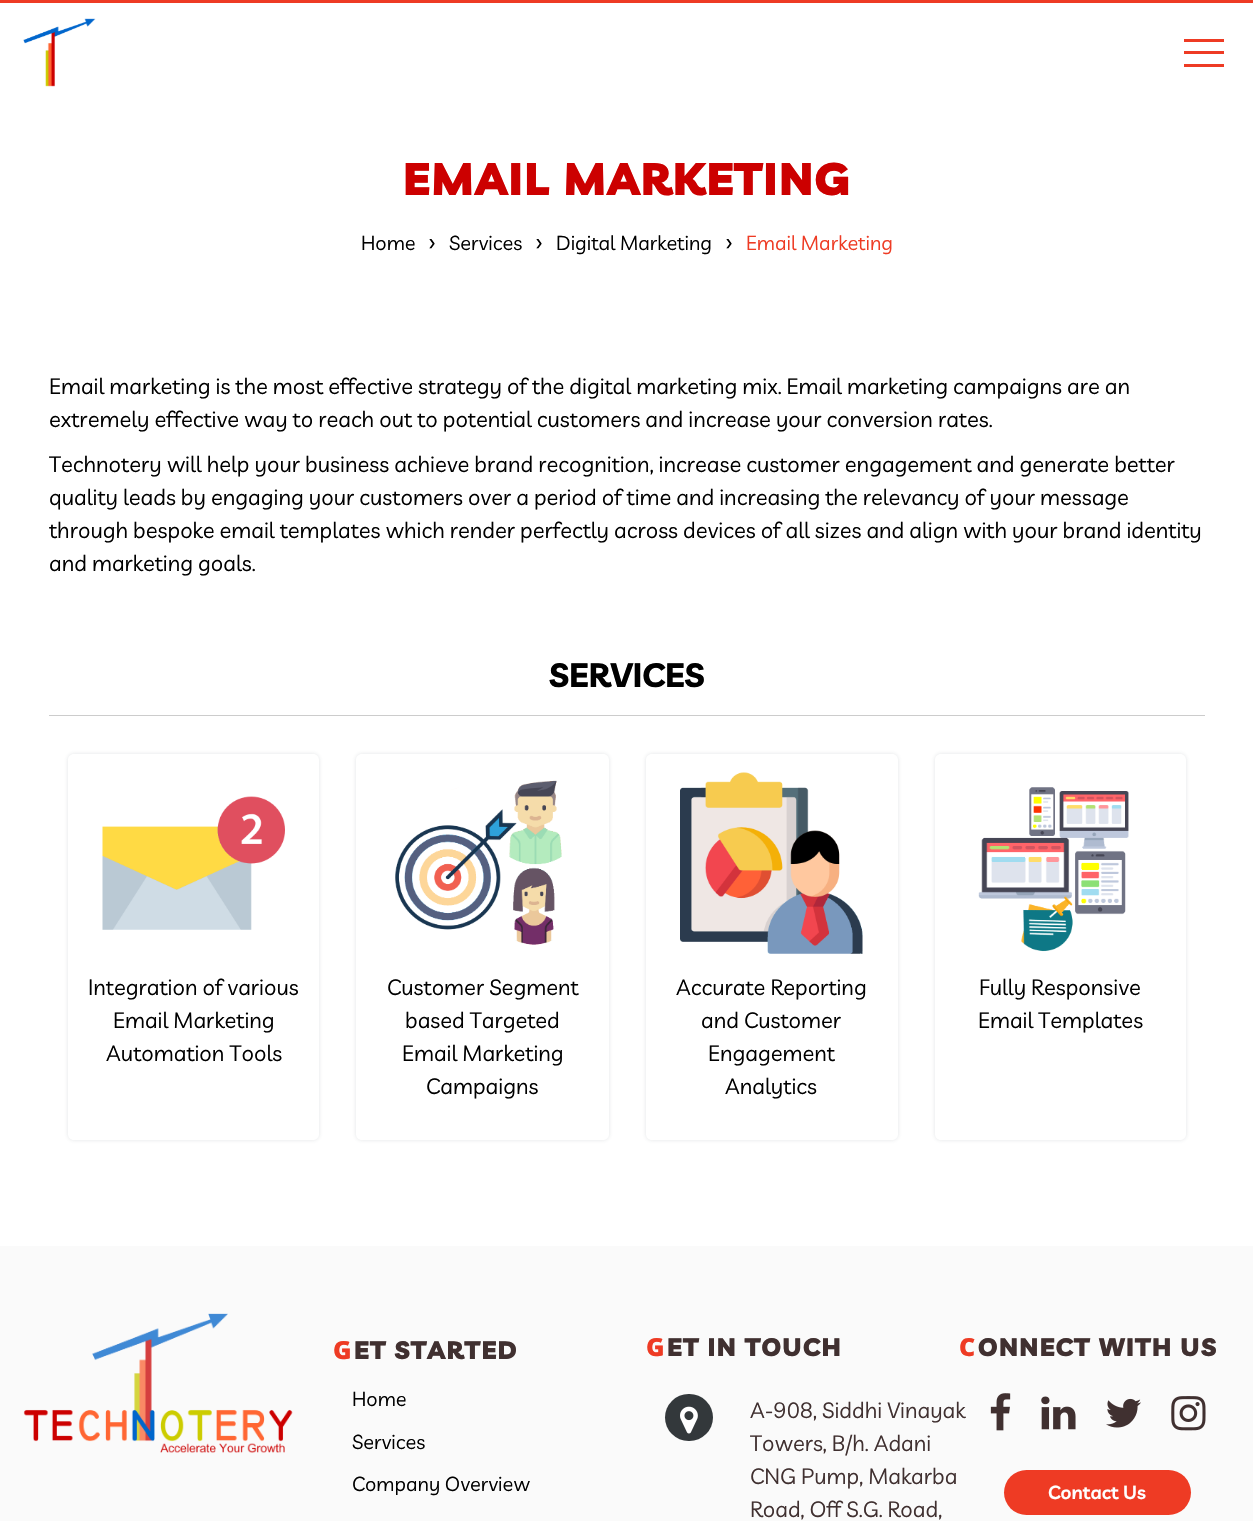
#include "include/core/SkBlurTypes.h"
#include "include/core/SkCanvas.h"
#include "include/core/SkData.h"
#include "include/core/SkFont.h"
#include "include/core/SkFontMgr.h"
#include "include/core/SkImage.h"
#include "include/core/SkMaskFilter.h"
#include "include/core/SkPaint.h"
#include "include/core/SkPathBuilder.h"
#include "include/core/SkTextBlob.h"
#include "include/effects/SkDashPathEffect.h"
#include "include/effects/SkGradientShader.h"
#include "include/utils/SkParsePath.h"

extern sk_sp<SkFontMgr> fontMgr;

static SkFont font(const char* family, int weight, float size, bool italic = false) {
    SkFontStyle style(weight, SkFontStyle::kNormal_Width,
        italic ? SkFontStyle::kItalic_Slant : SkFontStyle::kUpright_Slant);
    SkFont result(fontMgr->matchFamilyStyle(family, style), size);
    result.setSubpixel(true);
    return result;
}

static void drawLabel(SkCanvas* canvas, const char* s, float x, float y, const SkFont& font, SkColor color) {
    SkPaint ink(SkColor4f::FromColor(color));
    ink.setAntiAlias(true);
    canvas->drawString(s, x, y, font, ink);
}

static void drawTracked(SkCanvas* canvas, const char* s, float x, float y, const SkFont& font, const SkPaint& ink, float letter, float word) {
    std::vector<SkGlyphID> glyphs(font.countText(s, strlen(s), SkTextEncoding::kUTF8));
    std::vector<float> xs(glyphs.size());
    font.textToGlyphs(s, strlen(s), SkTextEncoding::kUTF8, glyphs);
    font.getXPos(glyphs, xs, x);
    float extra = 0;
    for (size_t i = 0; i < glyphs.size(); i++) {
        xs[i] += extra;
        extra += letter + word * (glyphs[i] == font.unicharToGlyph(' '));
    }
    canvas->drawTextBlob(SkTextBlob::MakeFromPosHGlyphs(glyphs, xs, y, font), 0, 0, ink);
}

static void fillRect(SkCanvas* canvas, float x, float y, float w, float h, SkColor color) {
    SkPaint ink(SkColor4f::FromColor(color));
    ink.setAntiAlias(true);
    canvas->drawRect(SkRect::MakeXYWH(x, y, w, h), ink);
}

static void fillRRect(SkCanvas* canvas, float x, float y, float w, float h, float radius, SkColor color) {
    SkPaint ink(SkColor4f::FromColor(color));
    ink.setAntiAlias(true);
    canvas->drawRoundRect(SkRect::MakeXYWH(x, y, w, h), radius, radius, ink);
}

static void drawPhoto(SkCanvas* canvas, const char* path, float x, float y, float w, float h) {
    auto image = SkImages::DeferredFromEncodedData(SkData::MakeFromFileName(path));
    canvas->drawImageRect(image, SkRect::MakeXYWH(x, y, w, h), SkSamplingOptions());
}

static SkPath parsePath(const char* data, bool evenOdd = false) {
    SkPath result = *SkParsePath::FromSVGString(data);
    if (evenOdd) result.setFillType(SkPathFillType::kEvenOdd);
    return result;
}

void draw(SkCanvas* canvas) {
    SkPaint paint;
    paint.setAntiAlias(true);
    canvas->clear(0xFFFFFFFF);
    fillRect(canvas, 0, 0, 1253, 3, 0xFFEE3B24);
    drawPhoto(canvas, "assets/img1.png", 23, 18, 73, 69);
    fillRect(canvas, 1184, 39, 40, 3, 0xFFEE3B24);
    fillRect(canvas, 1184, 64, 40, 3, 0xFFEE3B24);
    fillRect(canvas, 1184, 51, 40, 3, 0xFFEE3B24);
    SkFont font1 = font("Livvic", 900, 45);
    paint.setColor(0xFFCC0000);
    drawTracked(canvas, "EMAIL MARKETING", 403, 195, font1, paint, 1.25f, 0);
    SkFont font2 = font("Livvic", 400, 20);
    drawLabel(canvas, "Home", 361, 250, font2, 0xFF000000);
    SkFont font3 = font("Livvic", 400, 25);
    drawLabel(canvas, "›", 429, 250, font3, 0xFF000000);
    drawLabel(canvas, "Services", 449, 250, font2, 0xFF000000);
    drawLabel(canvas, "›", 536, 250, font3, 0xFF000000);
    drawLabel(canvas, "Digital Marketing", 556, 250, font2, 0xFF000000);
    drawLabel(canvas, "›", 726, 250, font3, 0xFF000000);
    drawLabel(canvas, "Email Marketing", 746, 250, font2, 0xFFEE3B24);
    SkFont font4 = font("Livvic", 400, 22);
    drawLabel(canvas, "Email marketing is the most effective strategy of the digital marketing mix. Email marketing campaigns are an", 49, 394, font4, 0xFF000000);
    drawLabel(canvas, "extremely effective way to reach out to potential customers and increase your conversion rates.", 49, 427, font4, 0xFF000000);
    drawLabel(canvas, "Technotery will help your business achieve brand recognition, increase customer engagement and generate better", 49, 472, font4, 0xFF000000);
    drawLabel(canvas, "quality leads by engaging your customers over a period of time and increasing the relevancy of your message", 49, 505, font4, 0xFF000000);
    drawLabel(canvas, "through bespoke email templates which render perfectly across devices of all sizes and align with your brand identity", 49, 538, font4, 0xFF000000);
    drawLabel(canvas, "and marketing goals.", 49, 571, font4, 0xFF000000);
    SkFont font5 = font("Livvic", 700, 33.5f);
    drawLabel(canvas, "SERVICES", 549, 687, font5, 0xFF000000);
    fillRect(canvas, 49, 715, 1156, 1, 0xFFCCCCCC);
    canvas->save();
    canvas->clipPath(parsePath("M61 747H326V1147H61ZM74 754H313C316.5 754 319 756.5 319 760V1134C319 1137.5 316.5 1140 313 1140H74C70.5 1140 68 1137.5 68 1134V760C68 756.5 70.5 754 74 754Z", true), true);
    paint.setColor(0x263C4858);
    paint.setMaskFilter(SkMaskFilter::MakeBlur(kNormal_SkBlurStyle, 2));
    canvas->drawRoundRect(SkRect::MakeXYWH(68, 754, 251, 386), 6, 6, paint);
    paint.setMaskFilter(nullptr);
    canvas->restore();
    drawPhoto(canvas, "assets/img2.png", 102, 796, 183, 134);
    drawLabel(canvas, "Integration of various", 88, 995, font4, 0xFF000000);
    drawLabel(canvas, "Email Marketing", 113, 1028, font4, 0xFF000000);
    drawLabel(canvas, "Automation Tools", 106, 1061, font4, 0xFF000000);
    canvas->save();
    canvas->clipPath(parsePath("M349 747H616V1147H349ZM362 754H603C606.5 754 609 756.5 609 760V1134C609 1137.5 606.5 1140 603 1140H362C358.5 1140 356 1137.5 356 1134V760C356 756.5 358.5 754 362 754Z", true), true);
    paint.setMaskFilter(SkMaskFilter::MakeBlur(kNormal_SkBlurStyle, 2));
    canvas->drawRoundRect(SkRect::MakeXYWH(356, 754, 253, 386), 6, 6, paint);
    paint.setMaskFilter(nullptr);
    canvas->restore();
    drawPhoto(canvas, "assets/img3.png", 395, 780, 167, 165);
    drawLabel(canvas, "Customer Segment", 387, 995, font4, 0xFF000000);
    drawLabel(canvas, "based Targeted", 405, 1028, font4, 0xFF000000);
    drawLabel(canvas, "Email Marketing", 402, 1061, font4, 0xFF000000);
    drawLabel(canvas, "Campaigns", 426, 1094, font4, 0xFF000000);
    canvas->save();
    canvas->clipPath(parsePath("M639 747H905V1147H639ZM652 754H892C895.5 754 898 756.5 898 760V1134C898 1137.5 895.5 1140 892 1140H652C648.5 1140 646 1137.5 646 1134V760C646 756.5 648.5 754 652 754Z", true), true);
    paint.setMaskFilter(SkMaskFilter::MakeBlur(kNormal_SkBlurStyle, 2));
    canvas->drawRoundRect(SkRect::MakeXYWH(646, 754, 252, 386), 6, 6, paint);
    paint.setMaskFilter(nullptr);
    canvas->restore();
    drawPhoto(canvas, "assets/img4.png", 680, 772, 183, 182);
    drawLabel(canvas, "Accurate Reporting", 676, 995, font4, 0xFF000000);
    drawLabel(canvas, "and Customer", 701, 1028, font4, 0xFF000000);
    drawLabel(canvas, "Engagement", 708, 1061, font4, 0xFF000000);
    drawLabel(canvas, "Analytics", 725, 1094, font4, 0xFF000000);
    canvas->save();
    canvas->clipPath(parsePath("M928 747H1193V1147H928ZM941 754H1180C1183.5 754 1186 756.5 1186 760V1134C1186 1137.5 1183.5 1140 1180 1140H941C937.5 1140 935 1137.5 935 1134V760C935 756.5 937.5 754 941 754Z", true), true);
    paint.setMaskFilter(SkMaskFilter::MakeBlur(kNormal_SkBlurStyle, 2));
    canvas->drawRoundRect(SkRect::MakeXYWH(935, 754, 251, 386), 6, 6, paint);
    paint.setMaskFilter(nullptr);
    canvas->restore();
    drawPhoto(canvas, "assets/img5.png", 978, 787, 151, 165);
    drawLabel(canvas, "Fully Responsive", 979, 995, font4, 0xFF000000);
    drawLabel(canvas, "Email Templates", 978, 1028, font4, 0xFF000000);
    fillRect(canvas, 0, 1246, 1253, 275, 0xFFFAFAFA);
    drawPhoto(canvas, "assets/img6.png", 23, 1313, 270, 140);
    SkFont font6 = font("Noto Sans", 900, 25);
    paint.setColor(0xFFEE3B24);
    drawTracked(canvas, "G", 333, 1359, font6, paint, 1.25f, 0);
    SkFont font7 = font("Livvic", 900, 25);
    paint.setColor(0xFF403030);
    drawTracked(canvas, "ET STARTED", 354, 1359, font7, paint, 1.25f, 0);
    drawLabel(canvas, "Home", 352, 1406, font2, 0xFF000000);
    drawLabel(canvas, "Services", 352, 1449, font2, 0xFF000000);
    drawLabel(canvas, "Company Overview", 352, 1491, font2, 0xFF000000);
    paint.setColor(0xFFEE3B24);
    drawTracked(canvas, "G", 646, 1356, font6, paint, 1.25f, 0);
    paint.setColor(0xFF403030);
    drawTracked(canvas, "ET IN TOUCH", 667, 1356, font7, paint, 1.25f, 0);
    fillRRect(canvas, 665, 1394, 48, 47, 23.5f, 0xFF33383B);
    drawPhoto(canvas, "assets/img7.png", 680, 1406, 18, 28);
    drawLabel(canvas, "A-908, Siddhi Vinayak", 750, 1418, font4, 0xFF403030);
    drawLabel(canvas, "Towers, B/h. Adani", 750, 1451, font4, 0xFF403030);
    drawLabel(canvas, "CNG Pump, Makarba", 750, 1484, font4, 0xFF403030);
    drawLabel(canvas, "Road, Off S.G. Road,", 750, 1517, font4, 0xFF403030);
    paint.setColor(0xFFEE3B24);
    drawTracked(canvas, "C", 959, 1356, font6, paint, 1.25f, 0);
    paint.setColor(0xFF403030);
    drawTracked(canvas, "ONNECT WITH US", 978, 1356, font7, paint, 1.25f, 0);
    drawPhoto(canvas, "assets/img8.png", 990, 1393, 21, 38);
    drawPhoto(canvas, "assets/img9.png", 1041, 1396, 35, 34);
    drawPhoto(canvas, "assets/img10.png", 1106, 1398, 35, 30);
    drawPhoto(canvas, "assets/img11.png", 1171, 1396, 35, 35);
    fillRRect(canvas, 1004, 1470, 187, 45, 22.5f, 0xFFEE3B24);
    SkFont font8 = font("Livvic", 600, 18.75f);
    drawLabel(canvas, "Contact Us", 1048, 1499, font8, 0xFFFFFFFF);
}
